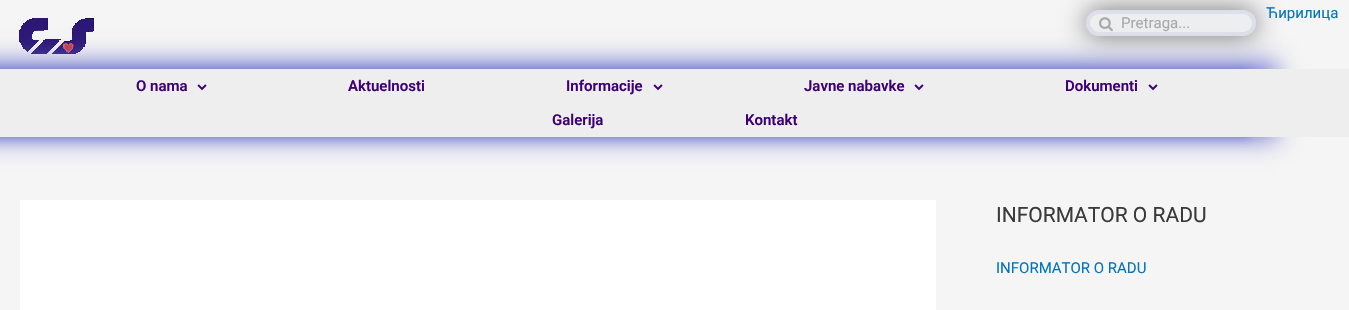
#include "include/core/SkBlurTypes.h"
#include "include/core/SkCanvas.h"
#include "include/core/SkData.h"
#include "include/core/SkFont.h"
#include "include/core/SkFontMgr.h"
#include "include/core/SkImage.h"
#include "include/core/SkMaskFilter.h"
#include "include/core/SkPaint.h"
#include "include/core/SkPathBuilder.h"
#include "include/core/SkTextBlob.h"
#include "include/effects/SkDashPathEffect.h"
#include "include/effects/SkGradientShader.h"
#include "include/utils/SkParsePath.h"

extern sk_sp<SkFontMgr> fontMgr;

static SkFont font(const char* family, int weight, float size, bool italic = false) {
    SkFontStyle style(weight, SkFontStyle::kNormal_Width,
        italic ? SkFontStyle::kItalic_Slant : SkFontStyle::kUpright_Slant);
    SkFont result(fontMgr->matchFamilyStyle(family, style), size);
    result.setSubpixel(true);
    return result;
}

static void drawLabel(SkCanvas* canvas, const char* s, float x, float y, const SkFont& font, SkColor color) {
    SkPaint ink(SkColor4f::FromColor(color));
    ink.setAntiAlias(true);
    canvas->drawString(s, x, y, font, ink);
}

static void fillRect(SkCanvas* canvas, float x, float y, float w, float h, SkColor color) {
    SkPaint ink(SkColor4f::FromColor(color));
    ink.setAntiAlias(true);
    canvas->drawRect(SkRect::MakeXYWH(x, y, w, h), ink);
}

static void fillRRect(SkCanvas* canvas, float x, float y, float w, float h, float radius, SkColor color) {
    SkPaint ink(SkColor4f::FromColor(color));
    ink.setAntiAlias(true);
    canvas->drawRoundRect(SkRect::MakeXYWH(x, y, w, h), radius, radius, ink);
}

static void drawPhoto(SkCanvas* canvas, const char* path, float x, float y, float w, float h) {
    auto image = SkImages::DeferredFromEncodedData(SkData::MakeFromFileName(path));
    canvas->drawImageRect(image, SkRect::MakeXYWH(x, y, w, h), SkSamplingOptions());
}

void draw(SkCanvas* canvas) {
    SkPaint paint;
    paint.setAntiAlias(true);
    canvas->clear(0xFFF5F5F5);
    paint.setColor(0x80000000);
    paint.setMaskFilter(SkMaskFilter::MakeBlur(kNormal_SkBlurStyle, 13));
    canvas->drawRoundRect(SkRect::MakeXYWH(1085, 9, 172, 28), 14, 14, paint);
    paint.setMaskFilter(nullptr);
    SkFont font1 = font("Roboto", 400, 15);
    drawLabel(canvas, "Ћирилица", 1266, 18, font1, 0xFF0274BE);
    drawPhoto(canvas, "assets/img1.png", 19, 18, 75, 36);
    fillRRect(canvas, 1086, 10, 170, 26, 13, 0xFFECEEEF);
    paint.setStroke(true);
    paint.setStrokeWidth(4);
    paint.setColor(0x21797ED0);
    canvas->drawRoundRect(SkRect::MakeXYWH(1088, 12, 166, 22), 11, 11, paint);
    drawPhoto(canvas, "assets/img2.png", 1099, 17, 14, 15);
    drawLabel(canvas, "Pretraga...", 1121, 28, font1, 0xFFA8A8A9);
    paint.setStroke(false);
    paint.setColor(0xFF797ED0);
    paint.setMaskFilter(SkMaskFilter::MakeBlur(kNormal_SkBlurStyle, 11.5f));
    canvas->drawRect(SkRect::MakeXYWH(-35, 62, 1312, 78), paint);
    paint.setMaskFilter(nullptr);
    paint.setColor(0xFC797ED0);
    paint.setMaskFilter(SkMaskFilter::MakeBlur(kNormal_SkBlurStyle, 5));
    canvas->drawRect(SkRect::MakeXYWH(-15, 69, 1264, 68), paint);
    paint.setMaskFilter(nullptr);
    fillRect(canvas, 0, 69, 1349, 68, 0xFFEEEEEE);
    SkFont font2 = font("Roboto", 600, 15);
    drawLabel(canvas, "O nama", 136, 91, font2, 0xFF3E0077);
    drawPhoto(canvas, "assets/img3.png", 197, 84, 10, 7);
    drawLabel(canvas, "Aktuelnosti", 348, 91, font2, 0xFF3E0077);
    drawLabel(canvas, "Informacije", 566, 91, font2, 0xFF3E0077);
    drawPhoto(canvas, "assets/img3.png", 653, 84, 10, 7);
    drawLabel(canvas, "Javne nabavke", 804, 91, font2, 0xFF3E0077);
    drawPhoto(canvas, "assets/img3.png", 914, 84, 10, 7);
    drawLabel(canvas, "Dokumenti", 1065, 91, font2, 0xFF3E0077);
    drawPhoto(canvas, "assets/img3.png", 1148, 84, 10, 7);
    drawLabel(canvas, "Galerija", 552, 125, font2, 0xFF3E0077);
    drawLabel(canvas, "Kontakt", 745, 125, font2, 0xFF3E0077);
    fillRect(canvas, 20, 200, 916, 110, 0xFFFFFFFF);
    SkFont font3 = font("Roboto", 400, 21);
    drawLabel(canvas, "INFORMATOR O RADU", 996, 222, font3, 0xFF3A3A3A);
    drawLabel(canvas, "INFORMATOR O RADU", 996, 273, font1, 0xFF0274BE);
}
